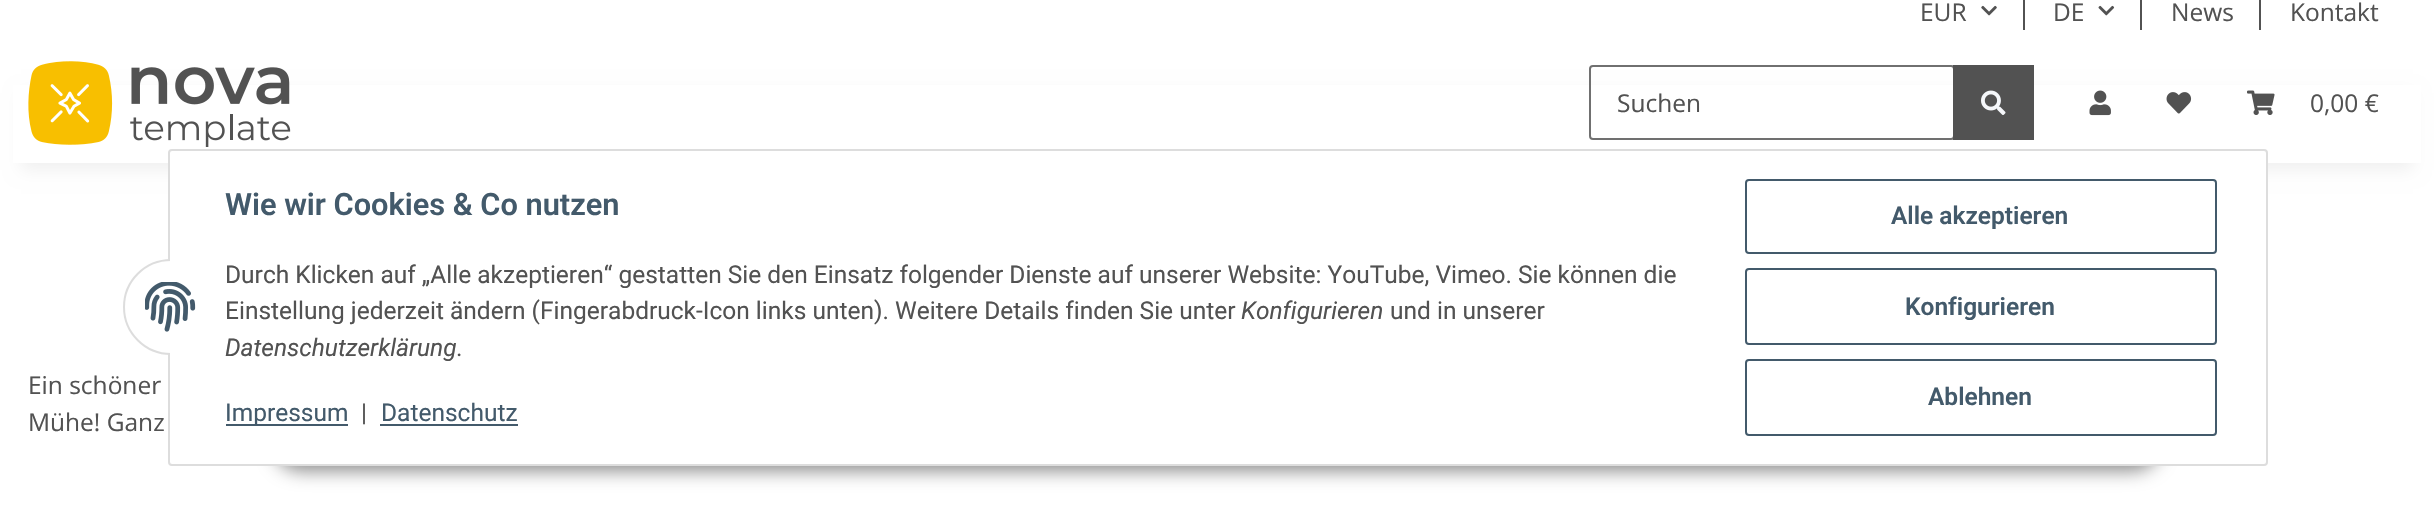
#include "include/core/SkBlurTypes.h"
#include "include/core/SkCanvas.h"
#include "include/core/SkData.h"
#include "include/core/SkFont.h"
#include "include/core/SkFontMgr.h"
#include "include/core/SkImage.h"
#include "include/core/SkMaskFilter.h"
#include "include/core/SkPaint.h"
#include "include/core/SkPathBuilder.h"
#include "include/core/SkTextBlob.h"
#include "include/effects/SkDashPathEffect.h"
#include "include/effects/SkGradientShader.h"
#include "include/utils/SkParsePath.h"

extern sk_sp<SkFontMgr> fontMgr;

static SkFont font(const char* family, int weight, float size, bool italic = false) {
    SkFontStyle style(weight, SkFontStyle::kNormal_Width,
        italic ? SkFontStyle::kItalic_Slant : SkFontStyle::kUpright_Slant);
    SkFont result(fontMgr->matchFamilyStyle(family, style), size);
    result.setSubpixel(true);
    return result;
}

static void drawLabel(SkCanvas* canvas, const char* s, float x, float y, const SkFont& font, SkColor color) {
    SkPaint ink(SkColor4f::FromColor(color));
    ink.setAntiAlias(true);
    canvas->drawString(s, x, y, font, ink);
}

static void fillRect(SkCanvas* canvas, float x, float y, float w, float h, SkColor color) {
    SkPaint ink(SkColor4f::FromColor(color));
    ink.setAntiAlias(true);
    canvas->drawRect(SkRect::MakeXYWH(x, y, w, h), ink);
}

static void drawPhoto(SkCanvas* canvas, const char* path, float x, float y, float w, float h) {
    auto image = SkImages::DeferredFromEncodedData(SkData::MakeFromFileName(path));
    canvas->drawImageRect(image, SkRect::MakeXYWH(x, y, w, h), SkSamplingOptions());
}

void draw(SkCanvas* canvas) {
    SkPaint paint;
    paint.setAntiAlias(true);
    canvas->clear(0xFFFFFFFF);
    SkFont font1 = font("Open Sans", 400, 24.5f);
    drawLabel(canvas, "EUR", 1920, 21, font1, 0xFF525252);
    drawPhoto(canvas, "assets/img1.png", 1981, 5, 16, 11);
    fillRect(canvas, 2023, 0, 2, 30, 0xFF525252);
    drawLabel(canvas, "DE", 2053, 21, font1, 0xFF525252);
    drawPhoto(canvas, "assets/img2.png", 2098, 5, 17, 11);
    fillRect(canvas, 2140, 0, 2, 30, 0xFF525252);
    drawLabel(canvas, "News", 2171, 21, font1, 0xFF525252);
    fillRect(canvas, 2259, 0, 2, 30, 0xFF525252);
    drawLabel(canvas, "Kontakt", 2290, 21, font1, 0xFF525252);
    paint.setColor(0x0F000000);
    paint.setMaskFilter(SkMaskFilter::MakeBlur(kNormal_SkBlurStyle, 8));
    canvas->drawRect(SkRect::MakeXYWH(21, 93, 2392, 77), paint);
    paint.setMaskFilter(nullptr);
    fillRect(canvas, 13, 85, 2408, 78, 0xFFFFFFFF);
    drawPhoto(canvas, "assets/img3.png", 28, 61, 263, 86);
    paint.setStroke(true);
    paint.setStrokeWidth(2);
    paint.setColor(0xFF707070);
    canvas->drawRoundRect(SkRect::MakeXYWH(1590, 66, 364, 73), 3, 3, paint);
    drawLabel(canvas, "Suchen", 1617, 112, font1, 0xFF525252);
    fillRect(canvas, 1953, 65, 81, 75, 0xFF525252);
    drawPhoto(canvas, "assets/img4.png", 1981, 90, 25, 25);
    drawPhoto(canvas, "assets/img5.png", 2089, 90, 22, 26);
    drawPhoto(canvas, "assets/img6.png", 2166, 92, 26, 22);
    drawPhoto(canvas, "assets/img7.png", 2247, 90, 28, 25);
    drawLabel(canvas, "0,00 €", 2310, 112, font1, 0xFF525252);
    drawLabel(canvas, "Ein schöner", 28, 394, font1, 0xFF525252);
    drawLabel(canvas, "Mühe! Ganz", 28, 431, font1, 0xFF525252);
    paint.setStroke(false);
    paint.setColor(0x73000000);
    paint.setMaskFilter(SkMaskFilter::MakeBlur(kNormal_SkBlurStyle, 9));
    canvas->drawRoundRect(SkRect::MakeXYWH(273, 415, 1888, 56), 28, 28, paint);
    paint.setMaskFilter(nullptr);
    paint.setColor(0xFFFFFFFF);
    canvas->drawRoundRect(SkRect::MakeXYWH(169, 150, 2098, 315), 3, 3, paint);
    paint.setStroke(true);
    paint.setColor(0xFFDDDDDD);
    canvas->drawRoundRect(SkRect::MakeXYWH(169, 150, 2098, 315), 3, 3, paint);
    paint.setStroke(false);
    paint.setColor(0xFFFFFFFF);
    canvas->drawCircle(171, 307, 47, paint);
    paint.setStroke(true);
    paint.setColor(0xFFDDDDDD);
    canvas->drawCircle(171, 307, 47, paint);
    fillRect(canvas, 170, 259, 49, 96, 0xFFFFFFFF);
    drawPhoto(canvas, "assets/img8.png", 145, 282, 51, 50);
    SkFont font2 = font("Roboto", 600, 30.75f);
    drawLabel(canvas, "Wie wir Cookies & Co nutzen", 225, 215, font2, 0xFF435A6B);
    SkFont font3 = font("Roboto", 400, 24.5f);
    drawLabel(canvas, "Durch Klicken auf „Alle akzeptieren“ gestatten Sie den Einsatz folgender Dienste auf unserer Website: YouTube, Vimeo. Sie können die", 225, 283, font3, 0xFF525252);
    drawLabel(canvas, "Einstellung jederzeit ändern (Fingerabdruck-Icon links unten). Weitere Details finden Sie unter", 225, 319, font3, 0xFF525252);
    SkFont font4 = font("Roboto", 400, 24.5f, true);
    drawLabel(canvas, "Konfigurieren", 1241, 319, font4, 0xFF525252);
    drawLabel(canvas, "und in unserer", 1390, 319, font3, 0xFF525252);
    drawLabel(canvas, "Datenschutzerklärung", 225, 356, font4, 0xFF525252);
    drawLabel(canvas, ".", 456, 356, font3, 0xFF525252);
    fillRect(canvas, 226, 424, 122, 2, 0xFF435A6B);
    drawLabel(canvas, "Impressum", 225, 421, font3, 0xFF435A6B);
    drawLabel(canvas, "|", 361, 421, font3, 0xFF525252);
    drawLabel(canvas, "Datenschutz", 381, 421, font3, 0xFF435A6B);
    fillRect(canvas, 380, 424, 138, 2, 0xFF435A6B);
    paint.setColor(0xFF435A6B);
    canvas->drawRoundRect(SkRect::MakeXYWH(1746, 180, 470, 73), 3, 3, paint);
    SkFont font5 = font("Roboto", 600, 24.5f);
    drawLabel(canvas, "Alle akzeptieren", 1891, 224, font5, 0xFF435A6B);
    canvas->drawRoundRect(SkRect::MakeXYWH(1746, 269, 470, 75), 3, 3, paint);
    drawLabel(canvas, "Konfigurieren", 1905, 315, font5, 0xFF435A6B);
    canvas->drawRoundRect(SkRect::MakeXYWH(1746, 360, 470, 75), 3, 3, paint);
    drawLabel(canvas, "Ablehnen", 1928, 405, font5, 0xFF435A6B);
}
